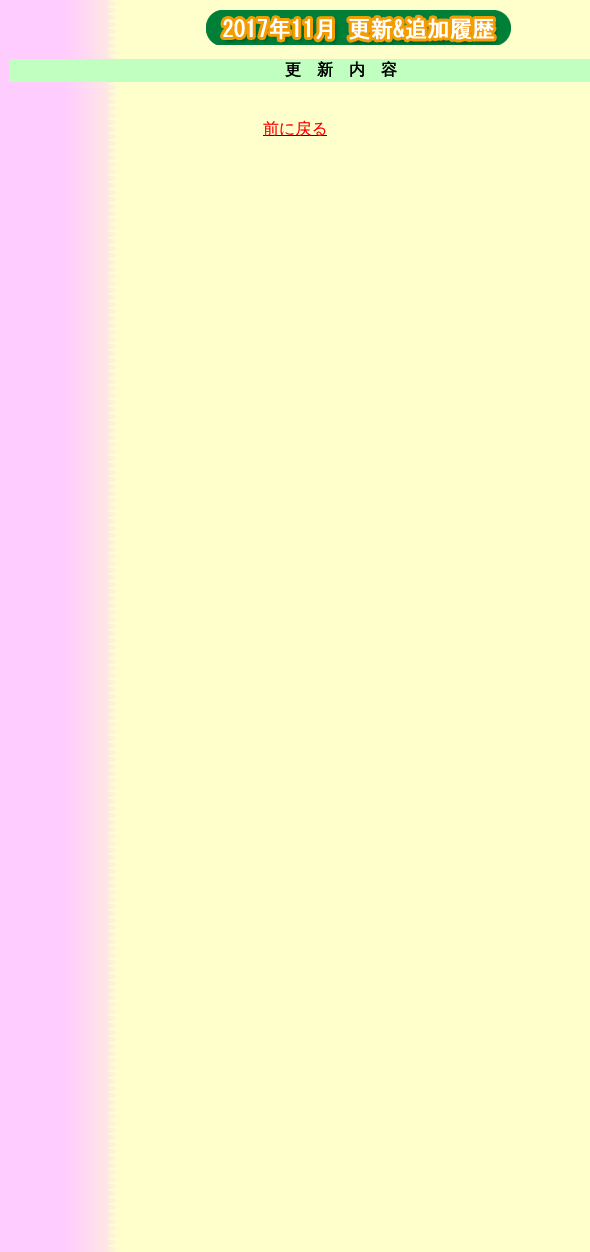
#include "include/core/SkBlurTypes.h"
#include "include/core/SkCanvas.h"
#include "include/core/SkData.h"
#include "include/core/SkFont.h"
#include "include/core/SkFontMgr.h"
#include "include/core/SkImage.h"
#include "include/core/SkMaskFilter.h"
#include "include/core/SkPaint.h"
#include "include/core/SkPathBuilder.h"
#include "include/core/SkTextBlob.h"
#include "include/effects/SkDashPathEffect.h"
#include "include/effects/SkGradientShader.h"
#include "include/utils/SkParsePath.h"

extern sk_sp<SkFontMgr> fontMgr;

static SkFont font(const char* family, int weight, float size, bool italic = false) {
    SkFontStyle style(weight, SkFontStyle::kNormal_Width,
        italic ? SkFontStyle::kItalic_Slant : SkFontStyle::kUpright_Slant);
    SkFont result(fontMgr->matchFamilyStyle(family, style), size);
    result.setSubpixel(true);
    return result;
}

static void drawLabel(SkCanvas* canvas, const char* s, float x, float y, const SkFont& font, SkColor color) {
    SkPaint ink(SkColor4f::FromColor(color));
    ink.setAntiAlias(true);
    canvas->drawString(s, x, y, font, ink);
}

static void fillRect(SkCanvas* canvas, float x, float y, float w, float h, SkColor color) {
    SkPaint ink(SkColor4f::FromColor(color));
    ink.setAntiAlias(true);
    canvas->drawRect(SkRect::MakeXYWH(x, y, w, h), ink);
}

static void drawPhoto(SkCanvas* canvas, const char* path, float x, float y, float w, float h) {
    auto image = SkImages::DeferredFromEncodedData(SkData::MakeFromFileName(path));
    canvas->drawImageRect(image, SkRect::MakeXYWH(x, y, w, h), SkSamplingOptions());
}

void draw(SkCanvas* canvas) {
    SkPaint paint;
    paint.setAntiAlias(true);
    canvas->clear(0xFFFFFFCC);
    drawPhoto(canvas, "assets/img1.png", 0, 0, 120, 1252);
    drawPhoto(canvas, "assets/img2.png", 206, 10, 305, 35);
    fillRect(canvas, 9, 59, 581, 23, 0xFFC1FFC1);
    SkFont font1 = font("WenQuanYi Zen Hei", 700, 16);
    drawLabel(canvas, "更　新　内　容", 285, 75, font1, 0xFF000000);
    fillRect(canvas, 263, 135, 64, 1, 0xFF0000EE);
    SkFont font2 = font("WenQuanYi Zen Hei", 500, 16);
    drawLabel(canvas, "前に戻る", 263, 134, font2, 0xFFFF0000);
}
